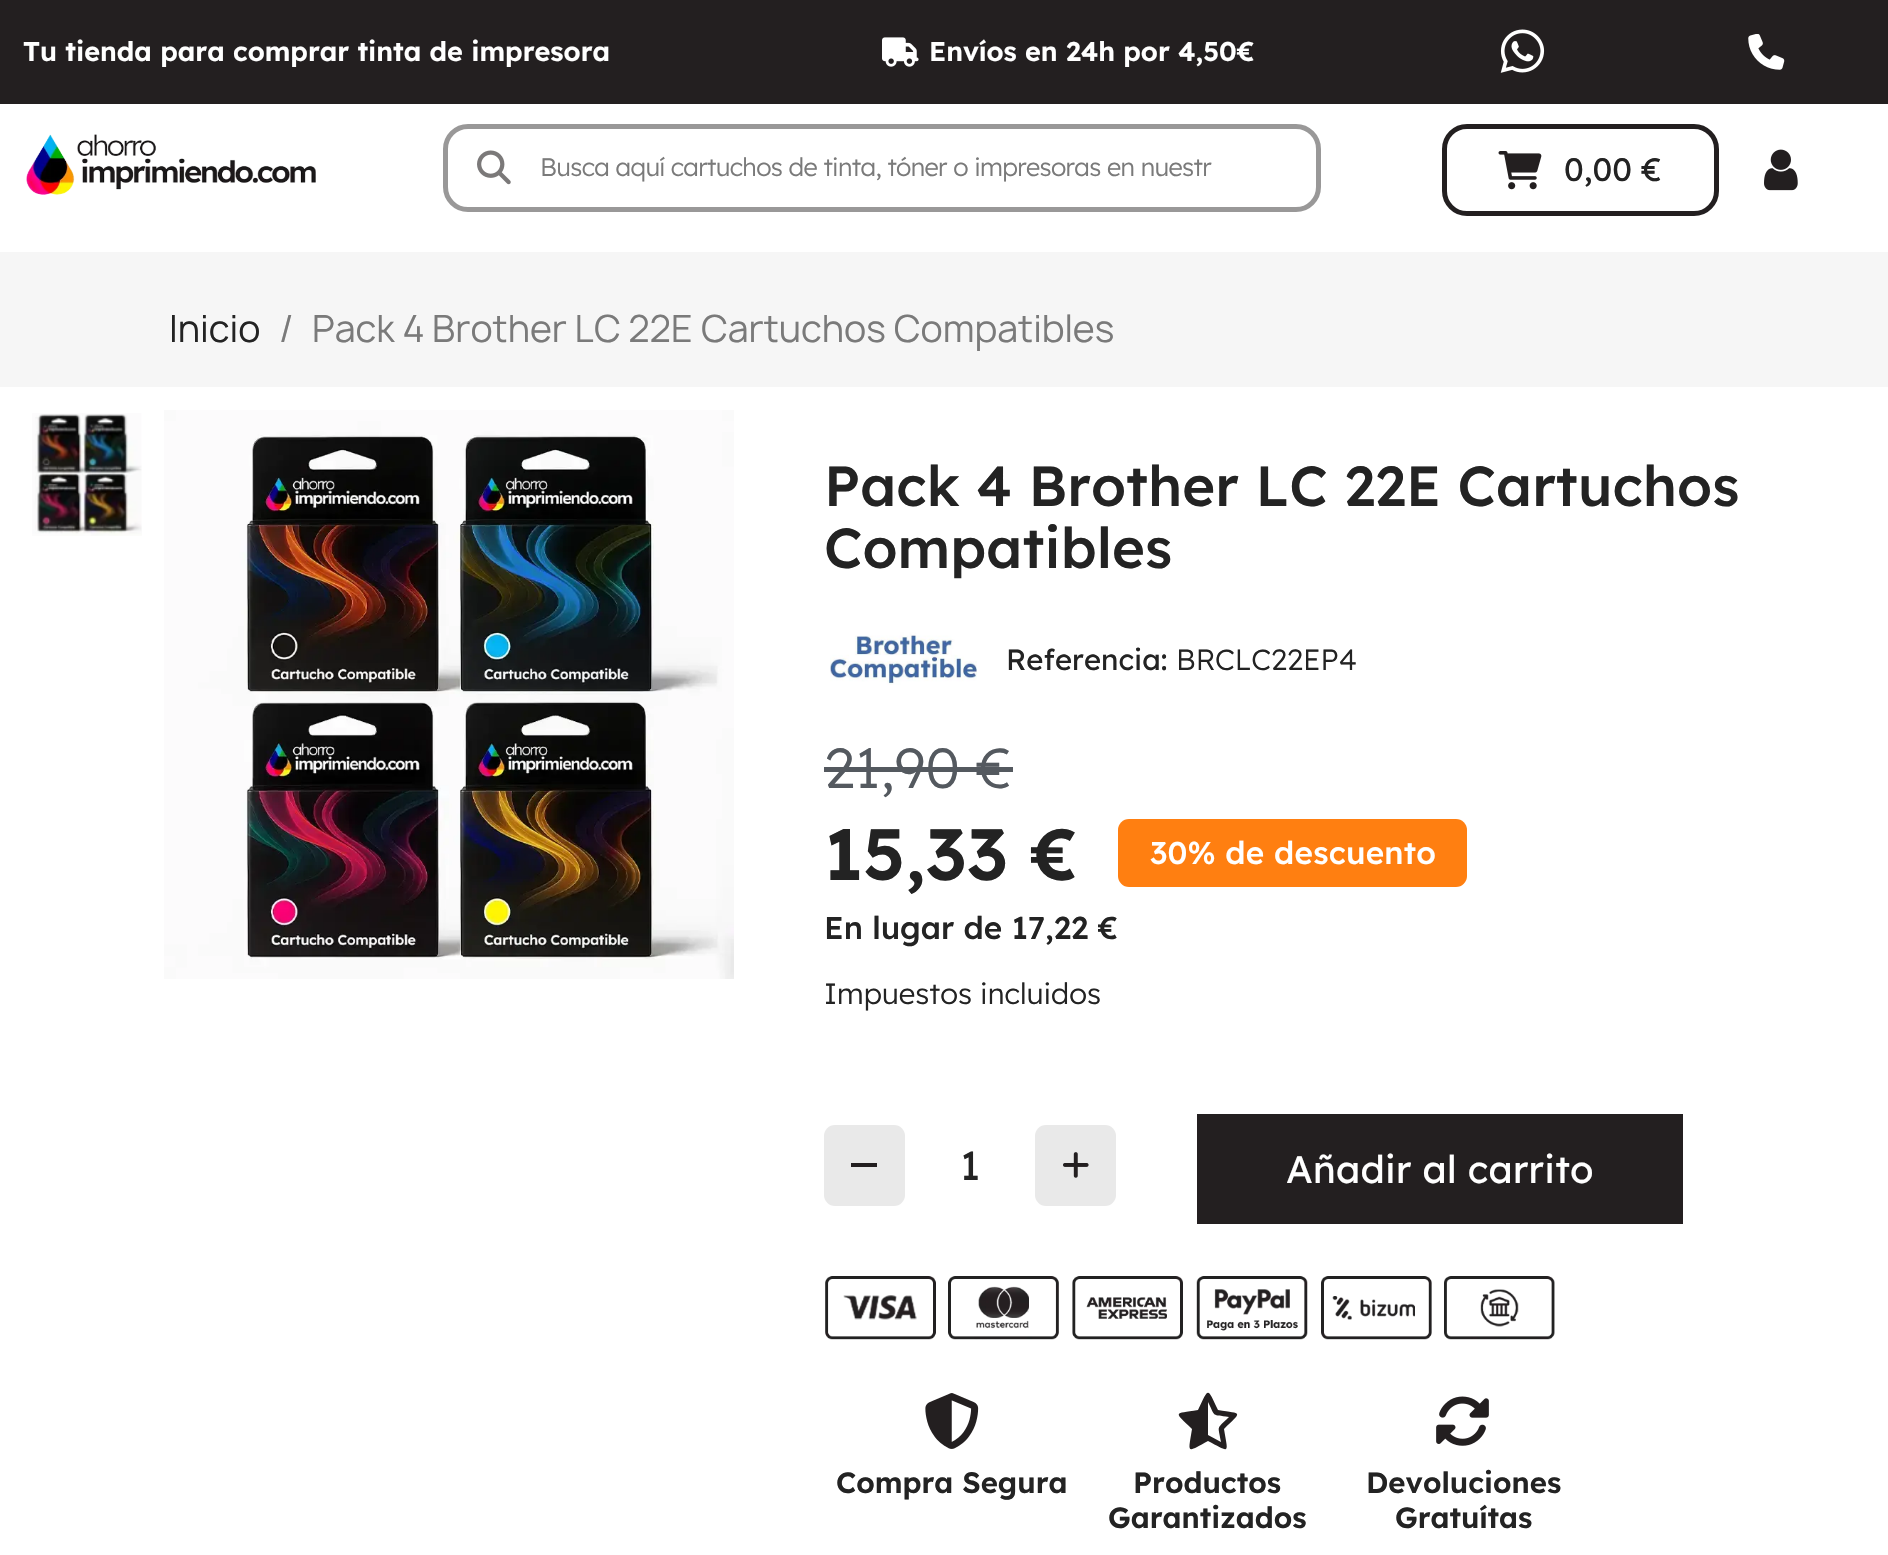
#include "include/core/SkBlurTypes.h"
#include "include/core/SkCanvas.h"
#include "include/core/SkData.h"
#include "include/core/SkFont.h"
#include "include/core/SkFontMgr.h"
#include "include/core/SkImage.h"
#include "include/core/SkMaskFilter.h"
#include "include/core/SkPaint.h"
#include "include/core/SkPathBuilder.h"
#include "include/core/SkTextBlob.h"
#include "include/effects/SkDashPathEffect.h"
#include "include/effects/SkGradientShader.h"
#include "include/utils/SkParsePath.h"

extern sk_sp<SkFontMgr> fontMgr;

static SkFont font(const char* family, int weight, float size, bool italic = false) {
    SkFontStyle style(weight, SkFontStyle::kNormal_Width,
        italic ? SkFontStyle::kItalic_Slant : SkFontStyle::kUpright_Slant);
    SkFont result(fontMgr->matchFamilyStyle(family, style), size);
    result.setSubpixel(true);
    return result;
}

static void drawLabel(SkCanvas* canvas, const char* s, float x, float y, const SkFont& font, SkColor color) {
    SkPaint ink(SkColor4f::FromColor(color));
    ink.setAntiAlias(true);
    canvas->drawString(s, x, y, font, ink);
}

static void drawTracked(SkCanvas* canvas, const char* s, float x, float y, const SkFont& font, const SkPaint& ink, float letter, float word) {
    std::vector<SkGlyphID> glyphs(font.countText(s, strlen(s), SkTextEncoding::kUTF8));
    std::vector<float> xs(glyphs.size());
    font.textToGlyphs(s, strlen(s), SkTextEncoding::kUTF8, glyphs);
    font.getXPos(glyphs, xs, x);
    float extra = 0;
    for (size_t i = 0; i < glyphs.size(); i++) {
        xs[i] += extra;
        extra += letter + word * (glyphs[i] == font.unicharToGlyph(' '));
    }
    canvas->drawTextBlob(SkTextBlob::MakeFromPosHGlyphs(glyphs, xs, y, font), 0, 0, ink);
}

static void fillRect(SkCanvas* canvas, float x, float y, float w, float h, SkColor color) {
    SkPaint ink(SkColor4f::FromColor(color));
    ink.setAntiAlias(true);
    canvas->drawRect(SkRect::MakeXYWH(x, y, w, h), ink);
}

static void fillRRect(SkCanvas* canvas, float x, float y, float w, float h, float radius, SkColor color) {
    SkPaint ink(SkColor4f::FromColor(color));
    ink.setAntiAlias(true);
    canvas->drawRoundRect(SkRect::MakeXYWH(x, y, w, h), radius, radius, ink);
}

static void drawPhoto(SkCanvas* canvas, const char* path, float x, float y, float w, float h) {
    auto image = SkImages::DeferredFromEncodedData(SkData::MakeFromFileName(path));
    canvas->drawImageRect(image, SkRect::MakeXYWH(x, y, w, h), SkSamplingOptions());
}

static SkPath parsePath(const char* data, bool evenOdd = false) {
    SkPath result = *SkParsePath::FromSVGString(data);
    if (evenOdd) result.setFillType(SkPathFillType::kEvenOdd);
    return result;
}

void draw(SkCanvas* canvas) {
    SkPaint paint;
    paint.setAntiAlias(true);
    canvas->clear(0xFFF6F6F6);
    fillRect(canvas, 0, 0, 1888, 104, 0xFF231F20);
    SkFont font1 = font("Lexend", 600, 27);
    drawLabel(canvas, "Tu tienda para comprar tinta de impresora", 23, 61, font1, 0xFFFFFFFF);
    drawPhoto(canvas, "assets/img1.png", 882, 37, 37, 30);
    drawLabel(canvas, "Envíos en 24h por 4,50€", 929, 61, font1, 0xFFFFFFFF);
    drawPhoto(canvas, "assets/img2.png", 1500, 29, 45, 44);
    drawPhoto(canvas, "assets/img3.png", 1748, 34, 37, 36);
    fillRect(canvas, 0, 104, 1888, 148, 0xFFFFFFFF);
    drawPhoto(canvas, "assets/img4.png", 26, 134, 290, 61);
    paint.setStroke(true);
    paint.setStrokeWidth(5);
    paint.setColor(0xFF999898);
    canvas->drawRoundRect(SkRect::MakeXYWH(445.5f, 126.5f, 873, 83), 22.5f, 22.5f, paint);
    drawPhoto(canvas, "assets/img5.png", 477, 150, 34, 35);
    SkFont font2 = font("Lexend", 300, 25.2f);
    paint.setStroke(false);
    paint.setColor(0xFF7A7A7A);
    drawTracked(canvas, "Busca aquí cartuchos de tinta, tóner o impresoras en nuestr", 540, 176, font2, paint, -0.67f, 0);
    paint.setStroke(true);
    paint.setColor(0xFF231F20);
    canvas->drawRoundRect(SkRect::MakeXYWH(1444.5f, 126.5f, 272, 87), 22.5f, 22.5f, paint);
    drawPhoto(canvas, "assets/img6.png", 1498, 151, 44, 39);
    SkFont font3 = font("Lexend", 400, 32.5f);
    drawLabel(canvas, "0,00 €", 1564, 181, font3, 0xFF232323);
    drawPhoto(canvas, "assets/img7.png", 1764, 149, 34, 42);
    SkFont font4 = font("Manrope", 400, 36);
    drawLabel(canvas, "Inicio", 169, 342, font4, 0xFF232323);
    drawLabel(canvas, "/", 279, 342, font4, 0xFF7A7A7A);
    drawLabel(canvas, "Pack 4 Brother LC 22E Cartuchos Compatibles", 312, 342, font4, 0xFF7A7A7A);
    fillRect(canvas, 0, 387, 1888, 1168, 0xFFFFFFFF);
    drawPhoto(canvas, "assets/img8.png", 32, 413, 110, 123);
    drawPhoto(canvas, "assets/img9.png", 164, 410, 570, 569);
    SkFont font5 = font("Lexend", 500, 56.25f);
    drawLabel(canvas, "Pack 4 Brother LC 22E Cartuchos", 824, 506, font5, 0xFF232323);
    drawLabel(canvas, "Compatibles", 824, 568, font5, 0xFF232323);
    drawPhoto(canvas, "assets/img10.png", 830, 578, 147, 107);
    SkFont font6 = font("Lexend", 400, 29.25f);
    drawLabel(canvas, "Referencia:", 1006, 670, font6, 0xFF232323);
    SkFont font7 = font("Lexend", 300, 29.25f);
    drawLabel(canvas, "BRCLC22EP4", 1176, 670, font7, 0xFF232323);
    SkFont font8 = font("Lexend", 300, 56.25f);
    drawLabel(canvas, "21,90 €", 824, 788, font8, 0xFF54595F);
    fillRect(canvas, 824, 767, 189, 5, 0xFF54595F);
    SkFont font9 = font("Lexend", 600, 72);
    drawLabel(canvas, "15,33 €", 824, 880, font9, 0xFF232323);
    fillRRect(canvas, 1118, 819, 349, 68, 11, 0xFFFF7F11);
    SkFont font10 = font("Lexend", 500, 31.5f);
    paint.setStroke(false);
    paint.setColor(0xFFFFFFFF);
    drawTracked(canvas, "30% de descuento", 1150, 864, font10, paint, 0.25f, 0);
    drawLabel(canvas, "En lugar de 17,22 €", 824, 939, font10, 0xFF232323);
    drawLabel(canvas, "Impuestos incluidos", 824, 1004, font7, 0xFF232323);
    fillRRect(canvas, 824, 1125, 81, 81, 11, 0xFFE9E9E9);
    fillRect(canvas, 851, 1163, 26, 4, 0xFF231F20);
    SkFont font11 = font("Lexend", 400, 40);
    drawLabel(canvas, "1", 960, 1180, font11, 0xFF232323);
    fillRRect(canvas, 1035, 1125, 81, 81, 11, 0xFFE9E9E9);
    drawPhoto(canvas, "assets/img11.png", 1063, 1152, 26, 26);
    fillRect(canvas, 1197, 1114, 486, 110, 0xFF231F20);
    SkFont font12 = font("Lexend", 400, 38.25f);
    drawTracked(canvas, "Añadir al carrito", 1286, 1183, font12, paint, 0.25f, 0);
    drawPhoto(canvas, "assets/img12.png", 825, 1276, 730, 64);
    drawPhoto(canvas, "assets/img13.png", 925, 1393, 54, 56);
    SkFont font13 = font("Lexend", 600, 29.25f);
    drawLabel(canvas, "Compra Segura", 836, 1493, font13, 0xFF232323);
    paint.setColor(0xFF231F20);
    canvas->drawPath(parsePath("M1218 1410C1243 1414 1242 1411 1224 1429C1228 1454 1231 1453 1208 1441C1186 1453 1188 1454 1192 1429C1174 1411 1173 1414 1198 1410C1209 1387 1207 1387 1218 1410ZM1208 1435L1221 1442C1218 1424 1216 1430 1229 1417C1211 1414 1216 1418 1208 1402Z"), paint);
    drawLabel(canvas, "Productos", 1133, 1493, font13, 0xFF232323);
    drawLabel(canvas, "Garantizados", 1108, 1528, font13, 0xFF232323);
    drawPhoto(canvas, "assets/img14.png", 1436, 1396, 53, 50);
    drawLabel(canvas, "Devoluciones", 1366, 1493, font13, 0xFF232323);
    drawLabel(canvas, "Gratuítas", 1395, 1528, font13, 0xFF232323);
}
